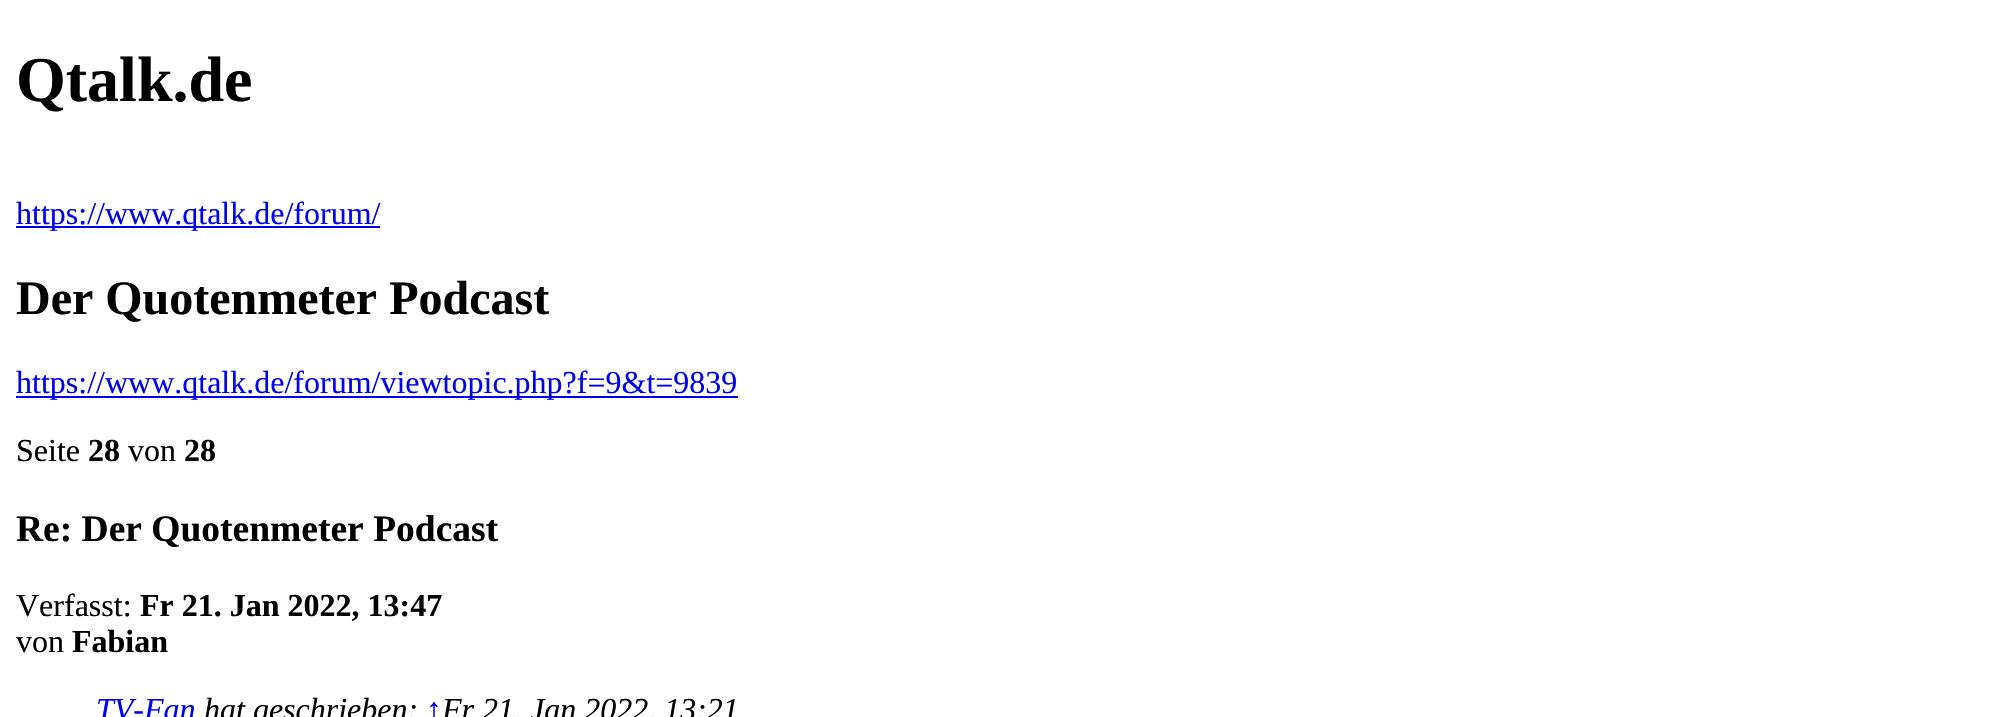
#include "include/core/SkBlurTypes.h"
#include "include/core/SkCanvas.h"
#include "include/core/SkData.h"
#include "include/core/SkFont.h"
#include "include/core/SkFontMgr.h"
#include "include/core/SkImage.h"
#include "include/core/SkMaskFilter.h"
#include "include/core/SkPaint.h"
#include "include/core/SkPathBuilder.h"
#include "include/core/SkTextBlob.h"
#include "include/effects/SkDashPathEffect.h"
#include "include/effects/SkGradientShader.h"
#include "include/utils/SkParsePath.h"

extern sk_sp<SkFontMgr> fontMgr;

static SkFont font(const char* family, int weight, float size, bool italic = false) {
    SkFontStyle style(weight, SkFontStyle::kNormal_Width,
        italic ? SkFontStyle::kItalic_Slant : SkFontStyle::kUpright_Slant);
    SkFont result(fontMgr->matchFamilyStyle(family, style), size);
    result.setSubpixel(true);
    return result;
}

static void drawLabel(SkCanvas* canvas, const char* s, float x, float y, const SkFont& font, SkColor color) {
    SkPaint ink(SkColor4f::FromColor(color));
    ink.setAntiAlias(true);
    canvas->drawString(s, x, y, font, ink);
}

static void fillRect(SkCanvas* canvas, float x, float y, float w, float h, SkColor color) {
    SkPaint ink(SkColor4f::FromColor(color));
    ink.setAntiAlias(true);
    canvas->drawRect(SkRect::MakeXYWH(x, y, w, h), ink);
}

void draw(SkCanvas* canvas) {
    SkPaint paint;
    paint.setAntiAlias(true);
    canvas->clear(0xFFFFFFFF);
    SkFont font1 = font("Liberation Serif", 700, 64);
    drawLabel(canvas, "Qtalk.de", 16, 101, font1, 0xFF000000);
    fillRect(canvas, 16, 226, 364, 2, 0xFF0000EE);
    SkFont font2 = font("Liberation Serif", 400, 32);
    drawLabel(canvas, "https://www.qtalk.de/forum/", 16, 224, font2, 0xFF0000EE);
    SkFont font3 = font("Liberation Serif", 700, 48);
    drawLabel(canvas, "Der Quotenmeter Podcast", 16, 314, font3, 0xFF000000);
    fillRect(canvas, 16, 396, 722, 2, 0xFF0000EE);
    drawLabel(canvas, "https://www.qtalk.de/forum/viewtopic.php?f=9&t=9839", 16, 393, font2, 0xFF0000EE);
    drawLabel(canvas, "Seite", 16, 461, font2, 0xFF000000);
    SkFont font4 = font("Liberation Serif", 700, 32);
    drawLabel(canvas, "28", 88, 461, font4, 0xFF000000);
    drawLabel(canvas, "von", 128, 461, font2, 0xFF000000);
    drawLabel(canvas, "28", 184, 461, font4, 0xFF000000);
    SkFont font5 = font("Liberation Serif", 700, 37.5f);
    drawLabel(canvas, "Re: Der Quotenmeter Podcast", 16, 541, font5, 0xFF000000);
    drawLabel(canvas, "Verfasst:", 16, 616, font2, 0xFF000000);
    drawLabel(canvas, "Fr 21. Jan 2022, 13:47", 140, 616, font4, 0xFF000000);
    drawLabel(canvas, "von", 16, 652, font2, 0xFF000000);
    drawLabel(canvas, "Fabian", 72, 652, font4, 0xFF000000);
    SkFont font6 = font("Liberation Serif", 400, 32, true);
    drawLabel(canvas, "TV-Fan", 96, 720, font6, 0xFF0000EE);
    drawLabel(canvas, "hat geschrieben:", 204, 720, font6, 0xFF000000);
    drawLabel(canvas, "↑", 426, 720, font6, 0xFF0000EE);
    drawLabel(canvas, "Fr 21. Jan 2022, 13:21", 442, 720, font6, 0xFF000000);
}
